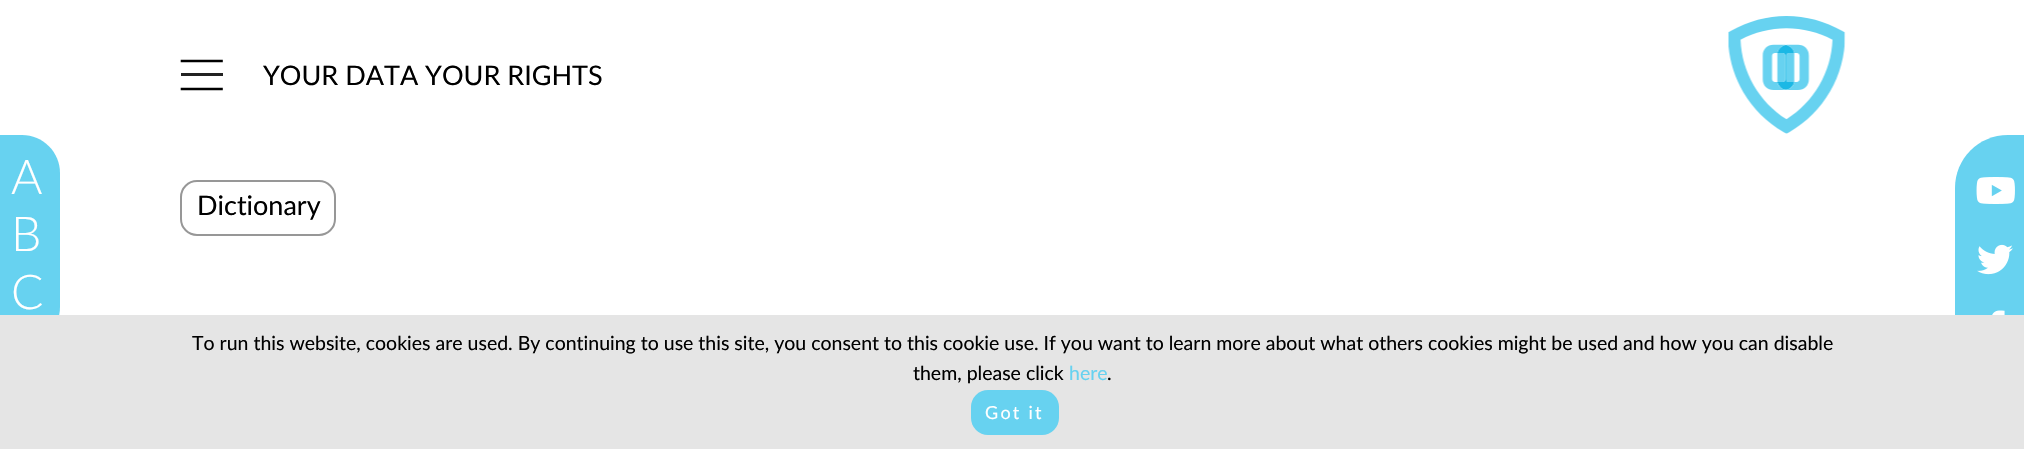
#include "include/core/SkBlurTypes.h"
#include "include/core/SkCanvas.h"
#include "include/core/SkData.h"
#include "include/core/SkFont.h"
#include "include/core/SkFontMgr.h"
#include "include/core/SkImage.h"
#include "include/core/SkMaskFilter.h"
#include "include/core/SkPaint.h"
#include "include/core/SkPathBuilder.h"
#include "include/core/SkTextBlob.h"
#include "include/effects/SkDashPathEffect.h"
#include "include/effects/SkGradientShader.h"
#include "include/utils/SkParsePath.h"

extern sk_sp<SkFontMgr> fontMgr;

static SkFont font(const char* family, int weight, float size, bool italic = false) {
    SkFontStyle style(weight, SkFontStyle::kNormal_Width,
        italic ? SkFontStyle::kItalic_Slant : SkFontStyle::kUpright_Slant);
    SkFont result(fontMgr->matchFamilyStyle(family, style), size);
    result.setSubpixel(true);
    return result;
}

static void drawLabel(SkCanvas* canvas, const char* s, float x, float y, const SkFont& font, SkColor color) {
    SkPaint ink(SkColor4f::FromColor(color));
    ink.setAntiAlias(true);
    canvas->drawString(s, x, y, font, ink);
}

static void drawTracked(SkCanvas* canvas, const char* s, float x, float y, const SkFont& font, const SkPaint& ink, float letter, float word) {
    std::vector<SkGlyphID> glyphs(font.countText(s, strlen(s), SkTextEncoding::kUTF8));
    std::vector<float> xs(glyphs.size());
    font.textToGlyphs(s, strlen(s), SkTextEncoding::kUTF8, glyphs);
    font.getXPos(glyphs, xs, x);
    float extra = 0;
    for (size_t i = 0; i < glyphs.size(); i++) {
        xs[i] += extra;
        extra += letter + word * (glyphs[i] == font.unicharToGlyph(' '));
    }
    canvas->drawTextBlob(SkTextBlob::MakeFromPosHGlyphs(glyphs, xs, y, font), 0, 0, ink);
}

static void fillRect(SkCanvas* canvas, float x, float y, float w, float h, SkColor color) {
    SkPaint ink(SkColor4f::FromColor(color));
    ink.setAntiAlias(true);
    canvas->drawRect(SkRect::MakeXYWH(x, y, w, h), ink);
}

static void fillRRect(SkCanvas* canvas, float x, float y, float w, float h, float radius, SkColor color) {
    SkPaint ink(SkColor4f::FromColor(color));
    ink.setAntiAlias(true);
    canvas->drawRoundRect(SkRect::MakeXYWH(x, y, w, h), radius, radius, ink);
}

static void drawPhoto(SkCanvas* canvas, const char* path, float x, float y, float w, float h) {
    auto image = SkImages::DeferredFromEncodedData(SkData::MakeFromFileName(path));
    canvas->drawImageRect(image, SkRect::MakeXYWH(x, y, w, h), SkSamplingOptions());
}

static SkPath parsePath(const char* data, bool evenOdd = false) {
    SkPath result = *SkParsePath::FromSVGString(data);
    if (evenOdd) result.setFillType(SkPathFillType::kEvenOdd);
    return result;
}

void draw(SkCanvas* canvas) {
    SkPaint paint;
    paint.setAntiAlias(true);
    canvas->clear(0xFFFFFFFF);
    paint.setStroke(true);
    paint.setStrokeWidth(2.6f);
    paint.setStrokeCap(SkPaint::kSquare_Cap);
    paint.setColor(0xFF000000);
    canvas->drawPath(parsePath("M221.5 61H182"), paint);
    fillRect(canvas, 181, 73, 42, 3, 0xFF222222);
    canvas->drawPath(parsePath("M221.5 89H182"), paint);
    SkFont font1 = font("Lato", 400, 27);
    drawLabel(canvas, "YOUR DATA YOUR RIGHTS", 263, 85, font1, 0xFF000000);
    drawPhoto(canvas, "assets/img1.png", 1728, 16, 118, 118);
    paint.setStroke(false);
    paint.setColor(0xFF67D2F0);
    canvas->drawPath(parsePath("M0 135H22C43 135 60 152 60 173V307C60 328 43 345 22 345H0Z"), paint);
    SkFont font2 = font("Lato", 300, 48);
    drawLabel(canvas, "A", 11, 194, font2, 0xFFFFFFFF);
    drawLabel(canvas, "B", 11, 251, font2, 0xFFFFFFFF);
    drawLabel(canvas, "C", 11, 309, font2, 0xFFFFFFFF);
    paint.setStroke(true);
    paint.setStrokeWidth(2);
    paint.setStrokeCap(SkPaint::kButt_Cap);
    paint.setColor(0xFF979797);
    canvas->drawRoundRect(SkRect::MakeXYWH(181, 181, 154, 54), 16, 16, paint);
    drawLabel(canvas, "Dictionary", 197, 215, font1, 0xFF000000);
    paint.setStroke(false);
    paint.setColor(0xFF67D2F0);
    canvas->drawPath(parsePath("M2008 135H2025V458H2008C1978.5 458 1955 434.5 1955 405V188C1955 158.5 1978.5 135 2008 135Z"), paint);
    drawPhoto(canvas, "assets/img2.png", 1976, 177, 39, 27);
    drawPhoto(canvas, "assets/img3.png", 1977, 244, 36, 31);
    drawPhoto(canvas, "assets/img4.png", 1992, 310, 13, 5);
    fillRect(canvas, 0, 315, 2024, 134, 0xFFE5E5E5);
    SkFont font3 = font("Lato", 400, 19.5f);
    drawLabel(canvas, "To run this website, cookies are used. By continuing to use this site, you consent to this cookie use. If you want to learn more about what others cookies might be used and how you can disable", 192, 350, font3, 0xFF000000);
    drawLabel(canvas, "them, please click", 913, 380, font3, 0xFF000000);
    drawLabel(canvas, "here", 1069, 380, font3, 0xFF67D2F0);
    drawLabel(canvas, ".", 1107, 380, font3, 0xFF000000);
    fillRRect(canvas, 971, 390, 88, 45, 17, 0xFF67D2F0);
    SkFont font4 = font("Lato", 400, 18);
    paint.setColor(0xFFFFFFFF);
    drawTracked(canvas, "Got it", 985, 419, font4, paint, 2.25f, 0);
}
